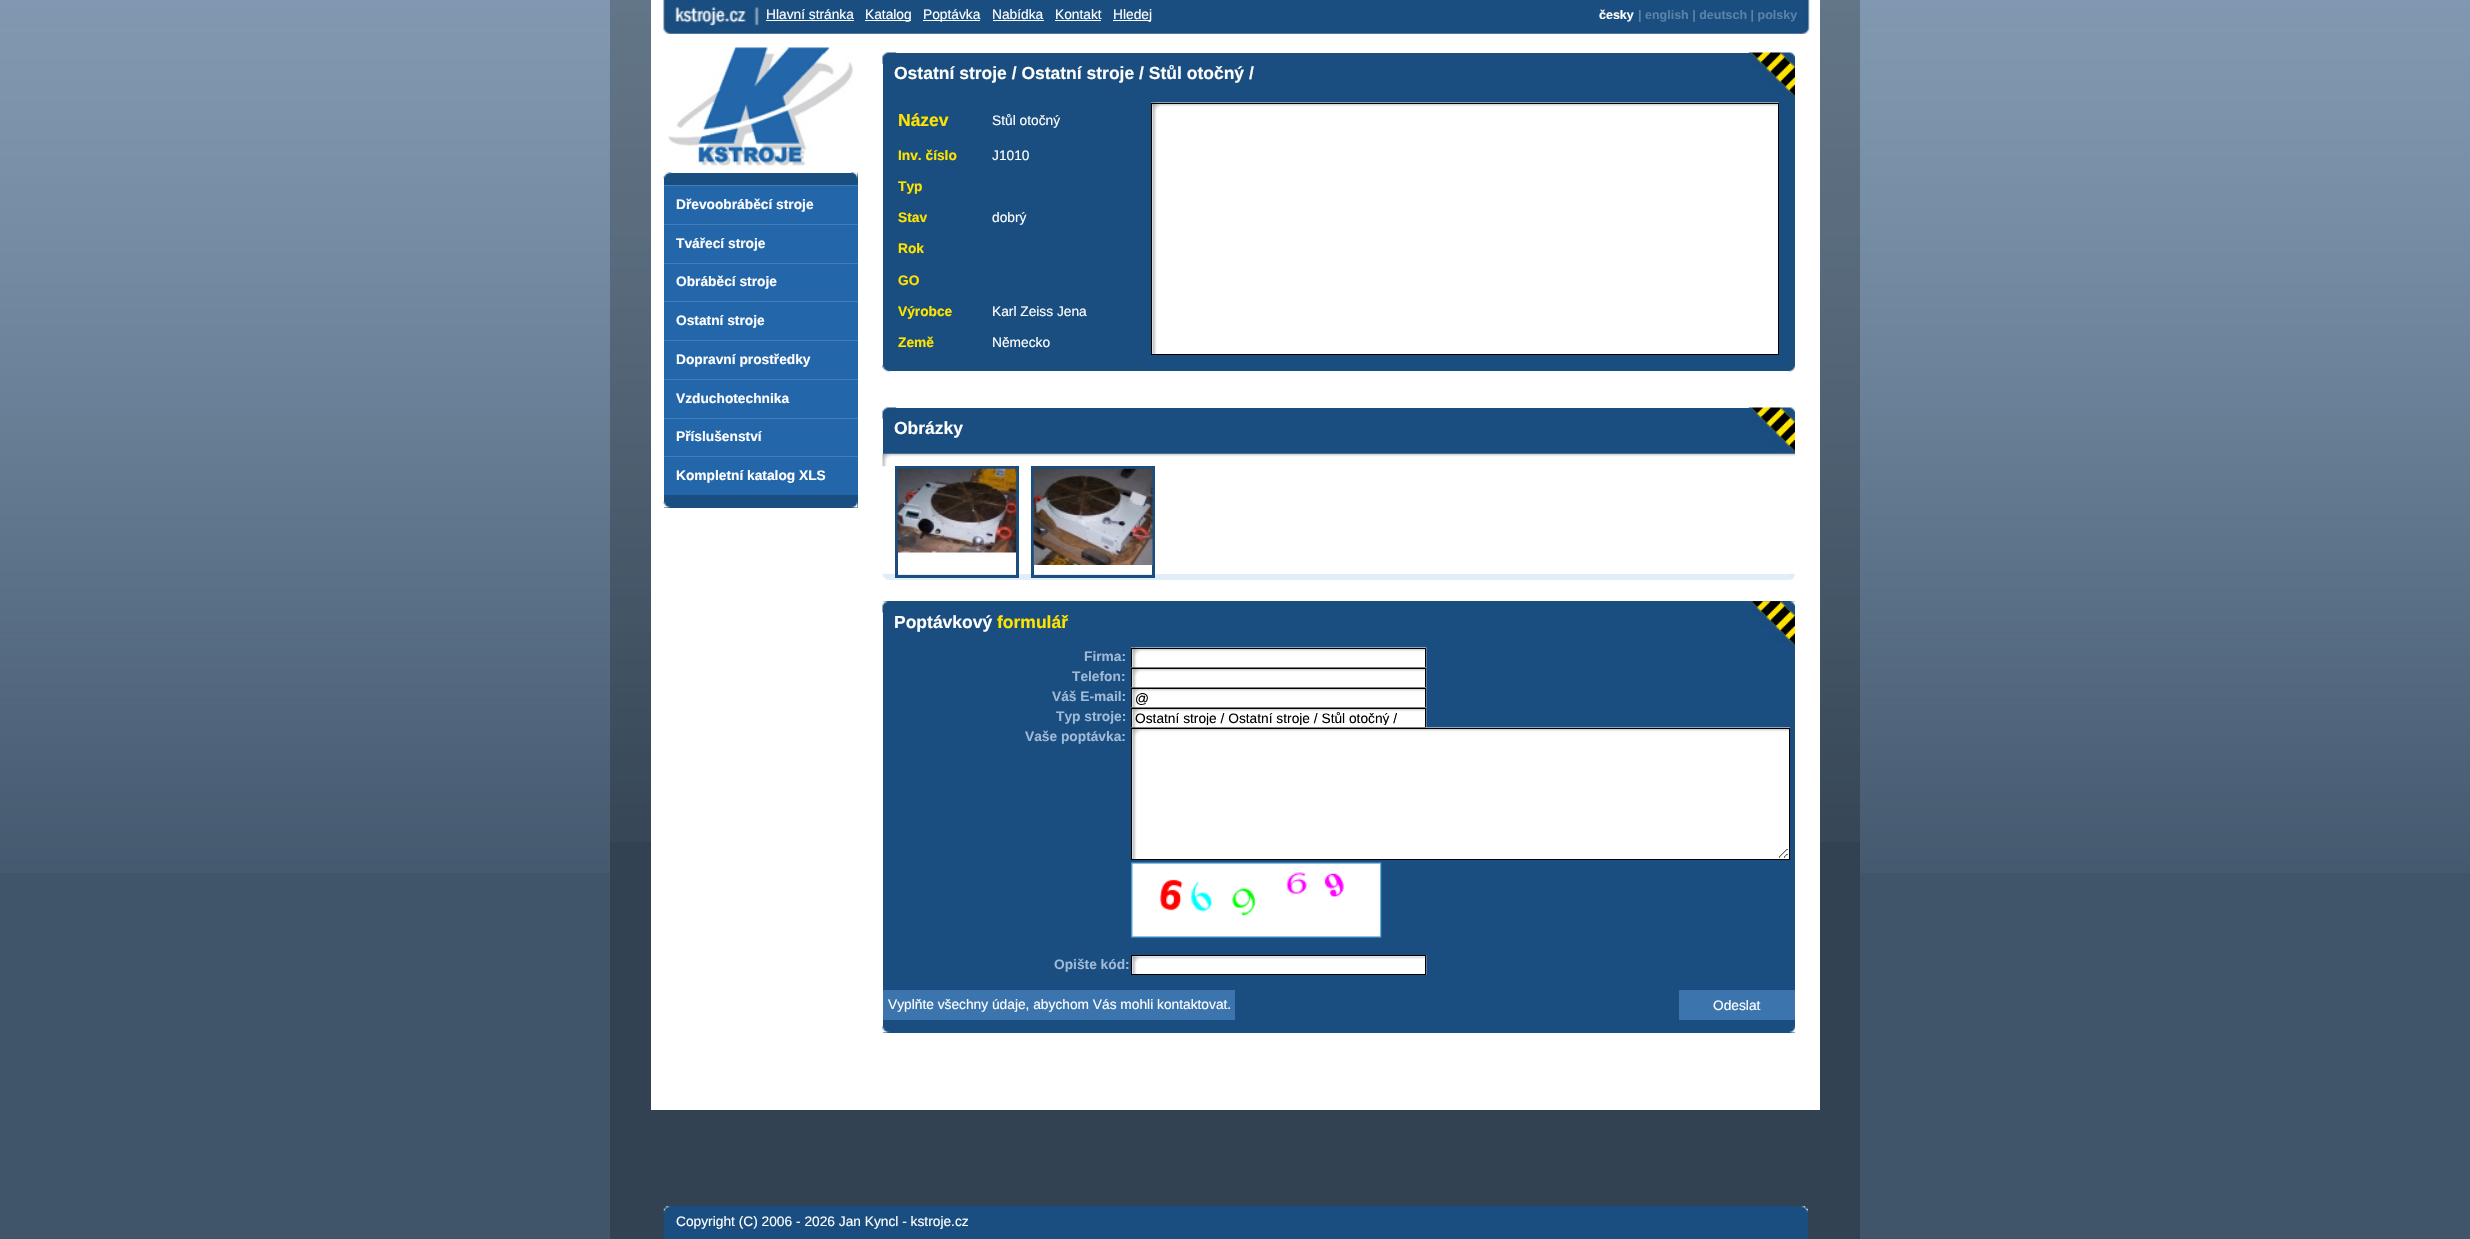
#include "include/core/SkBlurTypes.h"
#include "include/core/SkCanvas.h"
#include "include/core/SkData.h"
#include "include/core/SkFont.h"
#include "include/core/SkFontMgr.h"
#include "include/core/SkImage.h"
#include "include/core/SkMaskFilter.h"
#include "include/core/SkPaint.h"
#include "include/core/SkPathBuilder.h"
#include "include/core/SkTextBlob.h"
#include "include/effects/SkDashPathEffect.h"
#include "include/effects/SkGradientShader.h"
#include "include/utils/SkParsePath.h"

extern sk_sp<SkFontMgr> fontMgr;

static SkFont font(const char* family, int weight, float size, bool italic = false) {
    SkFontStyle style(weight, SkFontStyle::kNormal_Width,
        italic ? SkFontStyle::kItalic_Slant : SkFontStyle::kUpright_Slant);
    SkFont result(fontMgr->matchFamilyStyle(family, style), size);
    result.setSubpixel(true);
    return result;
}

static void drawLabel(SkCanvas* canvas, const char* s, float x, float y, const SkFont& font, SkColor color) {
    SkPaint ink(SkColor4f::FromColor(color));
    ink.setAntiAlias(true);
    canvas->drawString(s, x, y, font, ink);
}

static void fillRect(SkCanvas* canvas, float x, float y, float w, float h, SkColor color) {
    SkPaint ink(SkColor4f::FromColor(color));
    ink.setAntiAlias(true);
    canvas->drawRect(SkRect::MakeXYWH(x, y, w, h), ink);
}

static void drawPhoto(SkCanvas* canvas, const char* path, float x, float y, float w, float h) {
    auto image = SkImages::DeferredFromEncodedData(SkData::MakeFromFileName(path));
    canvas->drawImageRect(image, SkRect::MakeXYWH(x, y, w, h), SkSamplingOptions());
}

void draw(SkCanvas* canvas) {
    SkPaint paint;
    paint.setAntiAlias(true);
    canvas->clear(0xFF40556A);
    drawPhoto(canvas, "assets/img1.png", 0, 0, 2470, 873);
    fillRect(canvas, 610, 842, 1250, 397, 0xFF324252);
    drawPhoto(canvas, "assets/img2.png", 610, 0, 1250, 842);
    fillRect(canvas, 651, 0, 1169, 1110, 0xFFFFFFFF);
    drawPhoto(canvas, "assets/img3.png", 663, 0, 1147, 34);
    drawPhoto(canvas, "assets/img4.png", 675, 7, 84, 19);
    SkFont font1 = font("Liberation Sans", 400, 13.75f);
    drawLabel(canvas, "Hlavní stránka", 766, 19, font1, 0xFFFFFFFF);
    fillRect(canvas, 766, 20, 88, 1, 0xFFFFFFFF);
    fillRect(canvas, 865, 20, 46, 1, 0xFFFFFFFF);
    drawLabel(canvas, "Katalog", 865, 19, font1, 0xFFFFFFFF);
    fillRect(canvas, 923, 20, 57, 1, 0xFFFFFFFF);
    drawLabel(canvas, "Poptávka", 923, 19, font1, 0xFFFFFFFF);
    drawLabel(canvas, "Nabídka", 992, 19, font1, 0xFFFFFFFF);
    fillRect(canvas, 993, 20, 51, 1, 0xFFFFFFFF);
    drawLabel(canvas, "Kontakt", 1055, 19, font1, 0xFFFFFFFF);
    fillRect(canvas, 1055, 20, 46, 1, 0xFFFFFFFF);
    fillRect(canvas, 1113, 20, 38, 1, 0xFFFFFFFF);
    drawLabel(canvas, "Hledej", 1113, 19, font1, 0xFFFFFFFF);
    SkFont font2 = font("Liberation Sans", 700, 12.5f);
    drawLabel(canvas, "česky", 1599, 19, font2, 0xFFFFFFFF);
    drawLabel(canvas, "| english | deutsch | polsky", 1638, 19, font2, 0xFF5A82A6);
    drawPhoto(canvas, "assets/img5.png", 665, 47, 188, 123);
    fillRect(canvas, 664, 173, 194, 12, 0xFF1A4E80);
    drawPhoto(canvas, "assets/img6.png", 663, 172, 9, 7);
    drawPhoto(canvas, "assets/img7.png", 851, 172, 7, 7);
    fillRect(canvas, 664, 186, 194, 38, 0xFF2366AA);
    fillRect(canvas, 664, 185, 194, 1, 0xFF427DB7);
    SkFont font3 = font("Liberation Sans", 700, 13.75f);
    drawLabel(canvas, "Dřevoobráběcí stroje", 676, 209, font3, 0xFFFFFFFF);
    fillRect(canvas, 664, 225, 194, 38, 0xFF2366AA);
    fillRect(canvas, 664, 224, 194, 1, 0xFF427DB7);
    drawLabel(canvas, "Tvářecí stroje", 676, 248, font3, 0xFFFFFFFF);
    fillRect(canvas, 664, 264, 194, 37, 0xFF2366AA);
    fillRect(canvas, 664, 263, 194, 1, 0xFF427DB7);
    drawLabel(canvas, "Obráběcí stroje", 676, 286, font3, 0xFFFFFFFF);
    fillRect(canvas, 664, 302, 194, 38, 0xFF2366AA);
    fillRect(canvas, 664, 301, 194, 1, 0xFF427DB7);
    drawLabel(canvas, "Ostatní stroje", 676, 325, font3, 0xFFFFFFFF);
    fillRect(canvas, 664, 341, 194, 38, 0xFF2366AA);
    fillRect(canvas, 664, 340, 194, 1, 0xFF427DB7);
    drawLabel(canvas, "Dopravní prostředky", 676, 364, font3, 0xFFFFFFFF);
    fillRect(canvas, 664, 380, 194, 38, 0xFF2366AA);
    fillRect(canvas, 664, 379, 194, 1, 0xFF427DB7);
    drawLabel(canvas, "Vzduchotechnika", 676, 403, font3, 0xFFFFFFFF);
    fillRect(canvas, 664, 419, 194, 37, 0xFF2366AA);
    fillRect(canvas, 664, 418, 194, 1, 0xFF427DB7);
    drawLabel(canvas, "Příslušenství", 676, 441, font3, 0xFFFFFFFF);
    fillRect(canvas, 664, 457, 194, 38, 0xFF2366AA);
    fillRect(canvas, 664, 456, 194, 1, 0xFF427DB7);
    drawLabel(canvas, "Kompletní katalog XLS", 676, 480, font3, 0xFFFFFFFF);
    fillRect(canvas, 664, 495, 194, 13, 0xFF1A4E80);
    drawPhoto(canvas, "assets/img8.png", 851, 501, 7, 7);
    drawPhoto(canvas, "assets/img9.png", 663, 501, 8, 7);
    fillRect(canvas, 883, 53, 912, 318, 0xFF1A4E80);
    drawPhoto(canvas, "assets/img10.png", 1748, 52, 47, 43);
    drawPhoto(canvas, "assets/img11.png", 882, 52, 15, 12);
    SkFont font4 = font("Liberation Sans", 700, 17.5f);
    drawLabel(canvas, "Ostatní stroje / Ostatní stroje / Stůl otočný /", 894, 79, font4, 0xFFFFFFFF);
    drawLabel(canvas, "Název", 898, 126, font4, 0xFFFFE400);
    drawLabel(canvas, "Stůl otočný", 992, 125, font1, 0xFFFFFFFF);
    drawPhoto(canvas, "assets/img12.png", 1151, 102, 628, 252);
    paint.setStroke(true);
    paint.setStrokeWidth(1);
    paint.setColor(0xFF000000);
    canvas->drawRect(SkRect::MakeXYWH(1151.5f, 103.5f, 627, 251), paint);
    drawLabel(canvas, "Inv. číslo", 898, 160, font3, 0xFFFFE400);
    drawLabel(canvas, "J1010", 992, 160, font1, 0xFFFFFFFF);
    drawLabel(canvas, "Typ", 898, 191, font3, 0xFFFFE400);
    drawLabel(canvas, "Stav", 898, 222, font3, 0xFFFFE400);
    drawLabel(canvas, "dobrý", 992, 222, font1, 0xFFFFFFFF);
    drawLabel(canvas, "Rok", 898, 253, font3, 0xFFFFE400);
    drawLabel(canvas, "GO", 898, 285, font3, 0xFFFFE400);
    drawLabel(canvas, "Výrobce", 898, 316, font3, 0xFFFFE400);
    drawLabel(canvas, "Karl Zeiss Jena", 992, 316, font1, 0xFFFFFFFF);
    drawLabel(canvas, "Země", 898, 347, font3, 0xFFFFE400);
    drawLabel(canvas, "Německo", 992, 347, font1, 0xFFFFFFFF);
    drawPhoto(canvas, "assets/img13.png", 1788, 365, 7, 7);
    drawPhoto(canvas, "assets/img14.png", 882, 365, 8, 7);
    fillRect(canvas, 883, 408, 912, 46, 0xFF1A4E80);
    drawPhoto(canvas, "assets/img10.png", 1748, 407, 47, 43);
    drawPhoto(canvas, "assets/img11.png", 882, 407, 15, 12);
    drawLabel(canvas, "Obrázky", 894, 434, font4, 0xFFFFFFFF);
    drawPhoto(canvas, "assets/img15.png", 882, 453, 913, 14);
    fillRect(canvas, 883, 574, 912, 6, 0xFFE1EDF9);
    paint.setStrokeWidth(3);
    paint.setColor(0xFF1A4E80);
    canvas->drawRect(SkRect::MakeXYWH(896.5f, 467.5f, 121, 109), paint);
    drawPhoto(canvas, "assets/img16.png", 897, 468, 120, 85);
    canvas->drawRect(SkRect::MakeXYWH(1032.5f, 467.5f, 121, 109), paint);
    drawPhoto(canvas, "assets/img17.png", 1033, 468, 120, 97);
    drawPhoto(canvas, "assets/img18.png", 882, 573, 8, 7);
    drawPhoto(canvas, "assets/img19.png", 1789, 573, 6, 7);
    fillRect(canvas, 883, 601, 912, 432, 0xFF1A4E80);
    drawPhoto(canvas, "assets/img20.png", 1751, 601, 44, 43);
    drawPhoto(canvas, "assets/img21.png", 882, 601, 7, 12);
    drawLabel(canvas, "Poptávkový", 894, 628, font4, 0xFFFFFFFF);
    drawLabel(canvas, "formulář", 997, 628, font4, 0xFFFFE400);
    drawLabel(canvas, "Firma:", 1084, 661, font3, 0xFF9FBAD7);
    drawPhoto(canvas, "assets/img22.png", 1131, 647, 296, 21);
    paint.setStrokeWidth(1);
    paint.setColor(0xFF000000);
    canvas->drawRect(SkRect::MakeXYWH(1131.5f, 648.5f, 294, 19), paint);
    drawLabel(canvas, "Telefon:", 1072, 681, font3, 0xFF9FBAD7);
    drawPhoto(canvas, "assets/img23.png", 1131, 667, 296, 21);
    canvas->drawRect(SkRect::MakeXYWH(1131.5f, 668.5f, 294, 19), paint);
    drawLabel(canvas, "Váš E-mail:", 1052, 701, font3, 0xFF9FBAD7);
    drawPhoto(canvas, "assets/img23.png", 1131, 687, 296, 21);
    canvas->drawRect(SkRect::MakeXYWH(1131.5f, 688.5f, 294, 19), paint);
    drawLabel(canvas, "@", 1135, 703, font1, 0xFF000000);
    drawLabel(canvas, "Typ stroje:", 1056, 721, font3, 0xFF9FBAD7);
    drawPhoto(canvas, "assets/img23.png", 1131, 707, 296, 21);
    canvas->drawRect(SkRect::MakeXYWH(1131.5f, 708.5f, 294, 19), paint);
    canvas->save();
    canvas->clipRect(SkRect::MakeXYWH(1135, 710, 288, 15));
    drawLabel(canvas, "Ostatní stroje / Ostatní stroje / Stůl otočný /", 1135, 723, font1, 0xFF000000);
    canvas->restore();
    drawLabel(canvas, "Vaše poptávka:", 1025, 741, font3, 0xFF9FBAD7);
    drawPhoto(canvas, "assets/img24.png", 1131, 727, 659, 132);
    canvas->drawRect(SkRect::MakeXYWH(1131.5f, 728.5f, 658, 131), paint);
    drawPhoto(canvas, "assets/img25.png", 1131, 862, 251, 76);
    drawLabel(canvas, "Opište kód:", 1054, 969, font3, 0xFF9FBAD7);
    drawPhoto(canvas, "assets/img26.png", 1132, 955, 295, 20);
    canvas->drawRect(SkRect::MakeXYWH(1131.5f, 955.5f, 294, 19), paint);
    fillRect(canvas, 883, 990, 352, 30, 0xFF3C74AD);
    drawLabel(canvas, "Vyplňte všechny údaje, abychom Vás mohli kontaktovat.", 888, 1009, font1, 0xFFFFFFFF);
    fillRect(canvas, 1679, 990, 116, 30, 0xFF3C74AD);
    drawLabel(canvas, "Odeslat", 1713, 1010, font1, 0xFFFFFFFF);
    drawPhoto(canvas, "assets/img27.png", 1789, 1026, 6, 7);
    drawPhoto(canvas, "assets/img28.png", 882, 1026, 8, 7);
    drawPhoto(canvas, "assets/img29.png", 663, 1206, 1145, 33);
    drawLabel(canvas, "Copyright (C) 2006 - 2026 Jan Kyncl - kstroje.cz", 676, 1226, font1, 0xFFFFFFFF);
}
